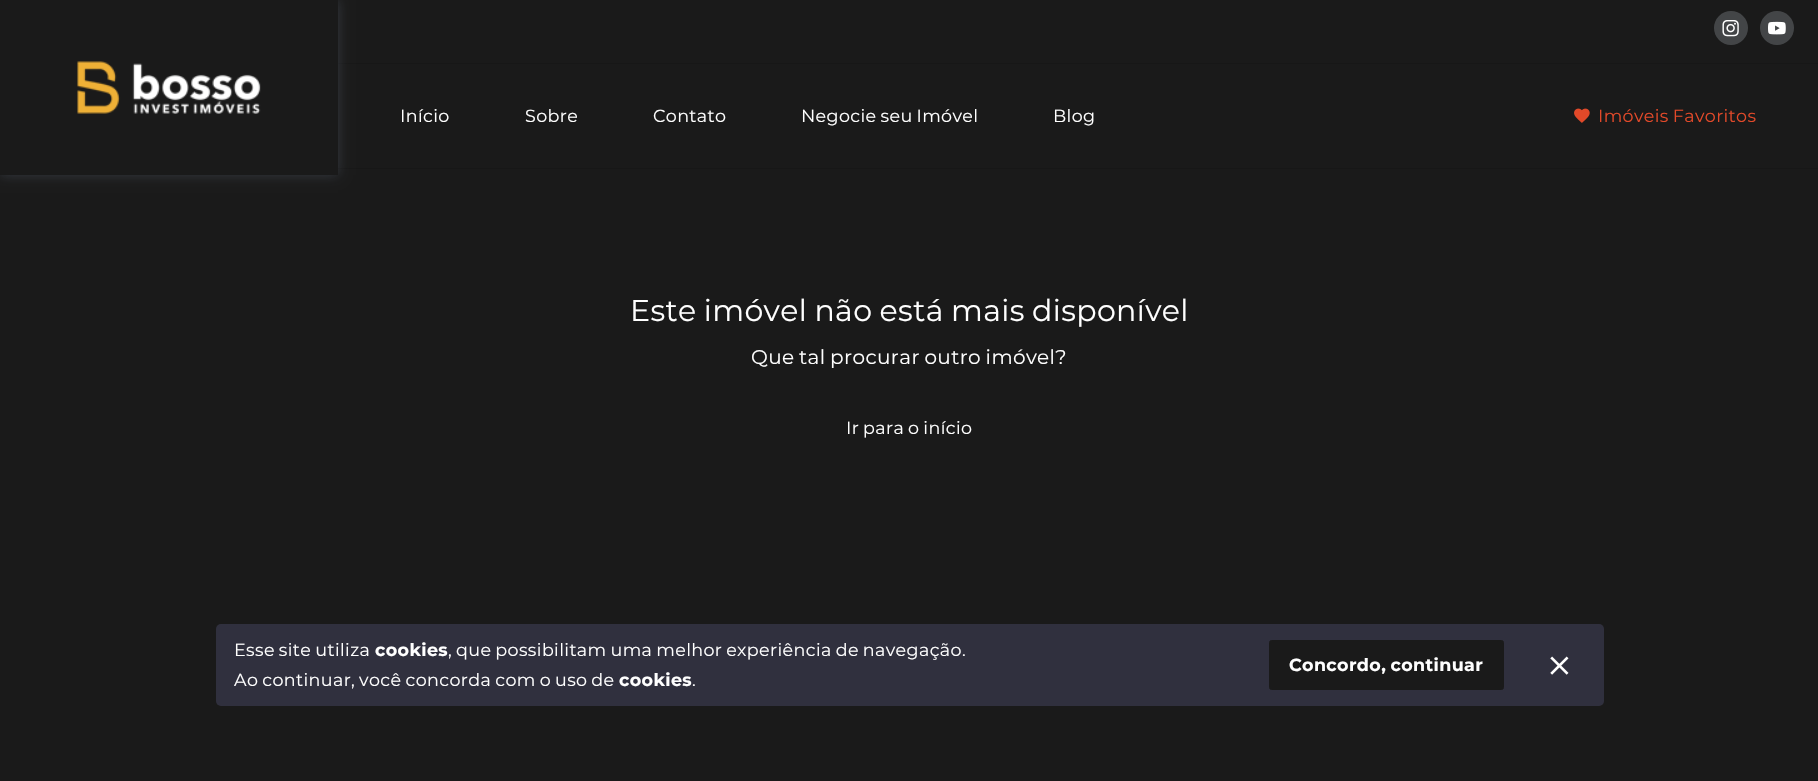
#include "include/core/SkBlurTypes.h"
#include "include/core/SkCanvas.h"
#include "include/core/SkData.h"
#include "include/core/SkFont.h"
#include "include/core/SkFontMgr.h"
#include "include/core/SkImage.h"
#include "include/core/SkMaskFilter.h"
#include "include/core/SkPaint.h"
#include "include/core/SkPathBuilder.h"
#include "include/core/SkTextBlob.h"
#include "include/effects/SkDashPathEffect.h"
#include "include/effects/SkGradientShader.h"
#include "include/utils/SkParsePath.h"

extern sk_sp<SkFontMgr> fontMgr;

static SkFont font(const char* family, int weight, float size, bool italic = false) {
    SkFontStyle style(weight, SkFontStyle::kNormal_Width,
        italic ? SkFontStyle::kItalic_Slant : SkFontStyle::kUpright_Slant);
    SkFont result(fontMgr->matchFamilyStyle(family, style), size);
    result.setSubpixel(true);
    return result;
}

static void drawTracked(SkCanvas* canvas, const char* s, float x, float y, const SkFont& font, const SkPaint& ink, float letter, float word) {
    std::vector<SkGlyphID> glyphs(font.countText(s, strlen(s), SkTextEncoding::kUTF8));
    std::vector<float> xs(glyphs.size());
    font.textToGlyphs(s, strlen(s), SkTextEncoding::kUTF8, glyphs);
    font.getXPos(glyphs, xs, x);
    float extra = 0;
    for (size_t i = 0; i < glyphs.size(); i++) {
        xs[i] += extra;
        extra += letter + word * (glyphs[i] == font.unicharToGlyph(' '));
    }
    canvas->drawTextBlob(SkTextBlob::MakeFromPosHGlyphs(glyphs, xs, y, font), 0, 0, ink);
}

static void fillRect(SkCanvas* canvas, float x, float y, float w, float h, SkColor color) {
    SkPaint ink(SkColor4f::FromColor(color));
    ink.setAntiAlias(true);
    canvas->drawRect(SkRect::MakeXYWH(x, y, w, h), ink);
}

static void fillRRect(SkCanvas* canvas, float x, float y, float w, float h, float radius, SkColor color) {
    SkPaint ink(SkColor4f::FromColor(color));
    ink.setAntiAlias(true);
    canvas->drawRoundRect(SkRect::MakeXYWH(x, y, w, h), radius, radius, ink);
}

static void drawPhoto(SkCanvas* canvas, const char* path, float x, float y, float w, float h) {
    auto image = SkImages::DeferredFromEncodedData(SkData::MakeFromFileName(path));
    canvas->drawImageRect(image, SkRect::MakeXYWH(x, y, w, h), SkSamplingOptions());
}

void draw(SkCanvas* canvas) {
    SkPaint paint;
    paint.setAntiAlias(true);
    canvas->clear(0xFF1A1A1A);
    fillRect(canvas, 338, 63, 1480, 1, 0xFF171717);
    fillRect(canvas, 338, 168, 1480, 1, 0xFF171717);
    paint.setColor(0x4D738297);
    paint.setMaskFilter(SkMaskFilter::MakeBlur(kNormal_SkBlurStyle, 6));
    canvas->drawRect(SkRect::MakeXYWH(0, 0, 338, 175), paint);
    paint.setMaskFilter(nullptr);
    fillRect(canvas, 0, 0, 338, 175, 0xFF1A1A1A);
    drawPhoto(canvas, "assets/img1.png", 77, 61, 184, 53);
    paint.setColor(0xFF434547);
    canvas->drawCircle(1731, 28, 17, paint);
    drawPhoto(canvas, "assets/img2.png", 1722, 20, 17, 17);
    canvas->drawCircle(1777, 28, 17, paint);
    drawPhoto(canvas, "assets/img3.png", 1768, 21, 18, 14);
    SkFont font1 = font("Montserrat", 400, 17.5f);
    paint.setColor(0xFFFFFFFF);
    drawTracked(canvas, "Início", 400, 122, font1, paint, 0.38f, 0);
    drawTracked(canvas, "Sobre", 525, 122, font1, paint, 0.38f, 0);
    drawTracked(canvas, "Contato", 653, 122, font1, paint, 0.38f, 0);
    drawTracked(canvas, "Negocie seu Imóvel", 801, 122, font1, paint, 0.38f, -1);
    drawTracked(canvas, "Blog", 1053, 122, font1, paint, 0.38f, 0);
    drawPhoto(canvas, "assets/img4.png", 1574, 108, 16, 15);
    paint.setColor(0xFFE24929);
    drawTracked(canvas, "Imóveis Favoritos", 1598, 122, font1, paint, 0.38f, -1);
    SkFont font2 = font("Montserrat", 400, 30);
    paint.setColor(0xFFFFFFFF);
    drawTracked(canvas, "Este imóvel não está mais disponível", 630, 321, font2, paint, 0.38f, -1);
    SkFont font3 = font("Montserrat", 400, 20);
    drawTracked(canvas, "Que tal procurar outro imóvel?", 751, 364, font3, paint, 0.38f, -1);
    drawTracked(canvas, "Ir para o início", 846, 434, font1, paint, 0.38f, -1);
    fillRRect(canvas, 216, 624, 1388, 82, 5, 0xFF30303E);
    drawTracked(canvas, "Esse site utiliza", 234, 656, font1, paint, 0.38f, -1);
    SkFont font4 = font("Montserrat", 700, 17.5f);
    drawTracked(canvas, "cookies", 375, 656, font4, paint, 0.38f, 0);
    drawTracked(canvas, ", que possibilitam uma melhor experiência de navegação.", 448, 656, font1, paint, 0.38f, -1);
    drawTracked(canvas, "Ao continuar, você concorda com o uso de", 234, 686, font1, paint, 0.38f, -1);
    drawTracked(canvas, "cookies", 619, 686, font4, paint, 0.38f, 0);
    drawTracked(canvas, ".", 692, 686, font1, paint, 0.38f, 0);
    paint.setColor(0xFF1A1A1A);
    canvas->drawRoundRect(SkRect::MakeXYWH(1269.5f, 640.5f, 234, 49), 2, 2, paint);
    paint.setStroke(true);
    paint.setStrokeWidth(1);
    canvas->drawRoundRect(SkRect::MakeXYWH(1269.5f, 640.5f, 234, 49), 2, 2, paint);
    paint.setStroke(false);
    paint.setColor(0xFFFFFFFF);
    drawTracked(canvas, "Concordo, continuar", 1289, 671, font4, paint, 0.38f, -1);
    drawPhoto(canvas, "assets/img5.png", 1550, 656, 19, 19);
}
